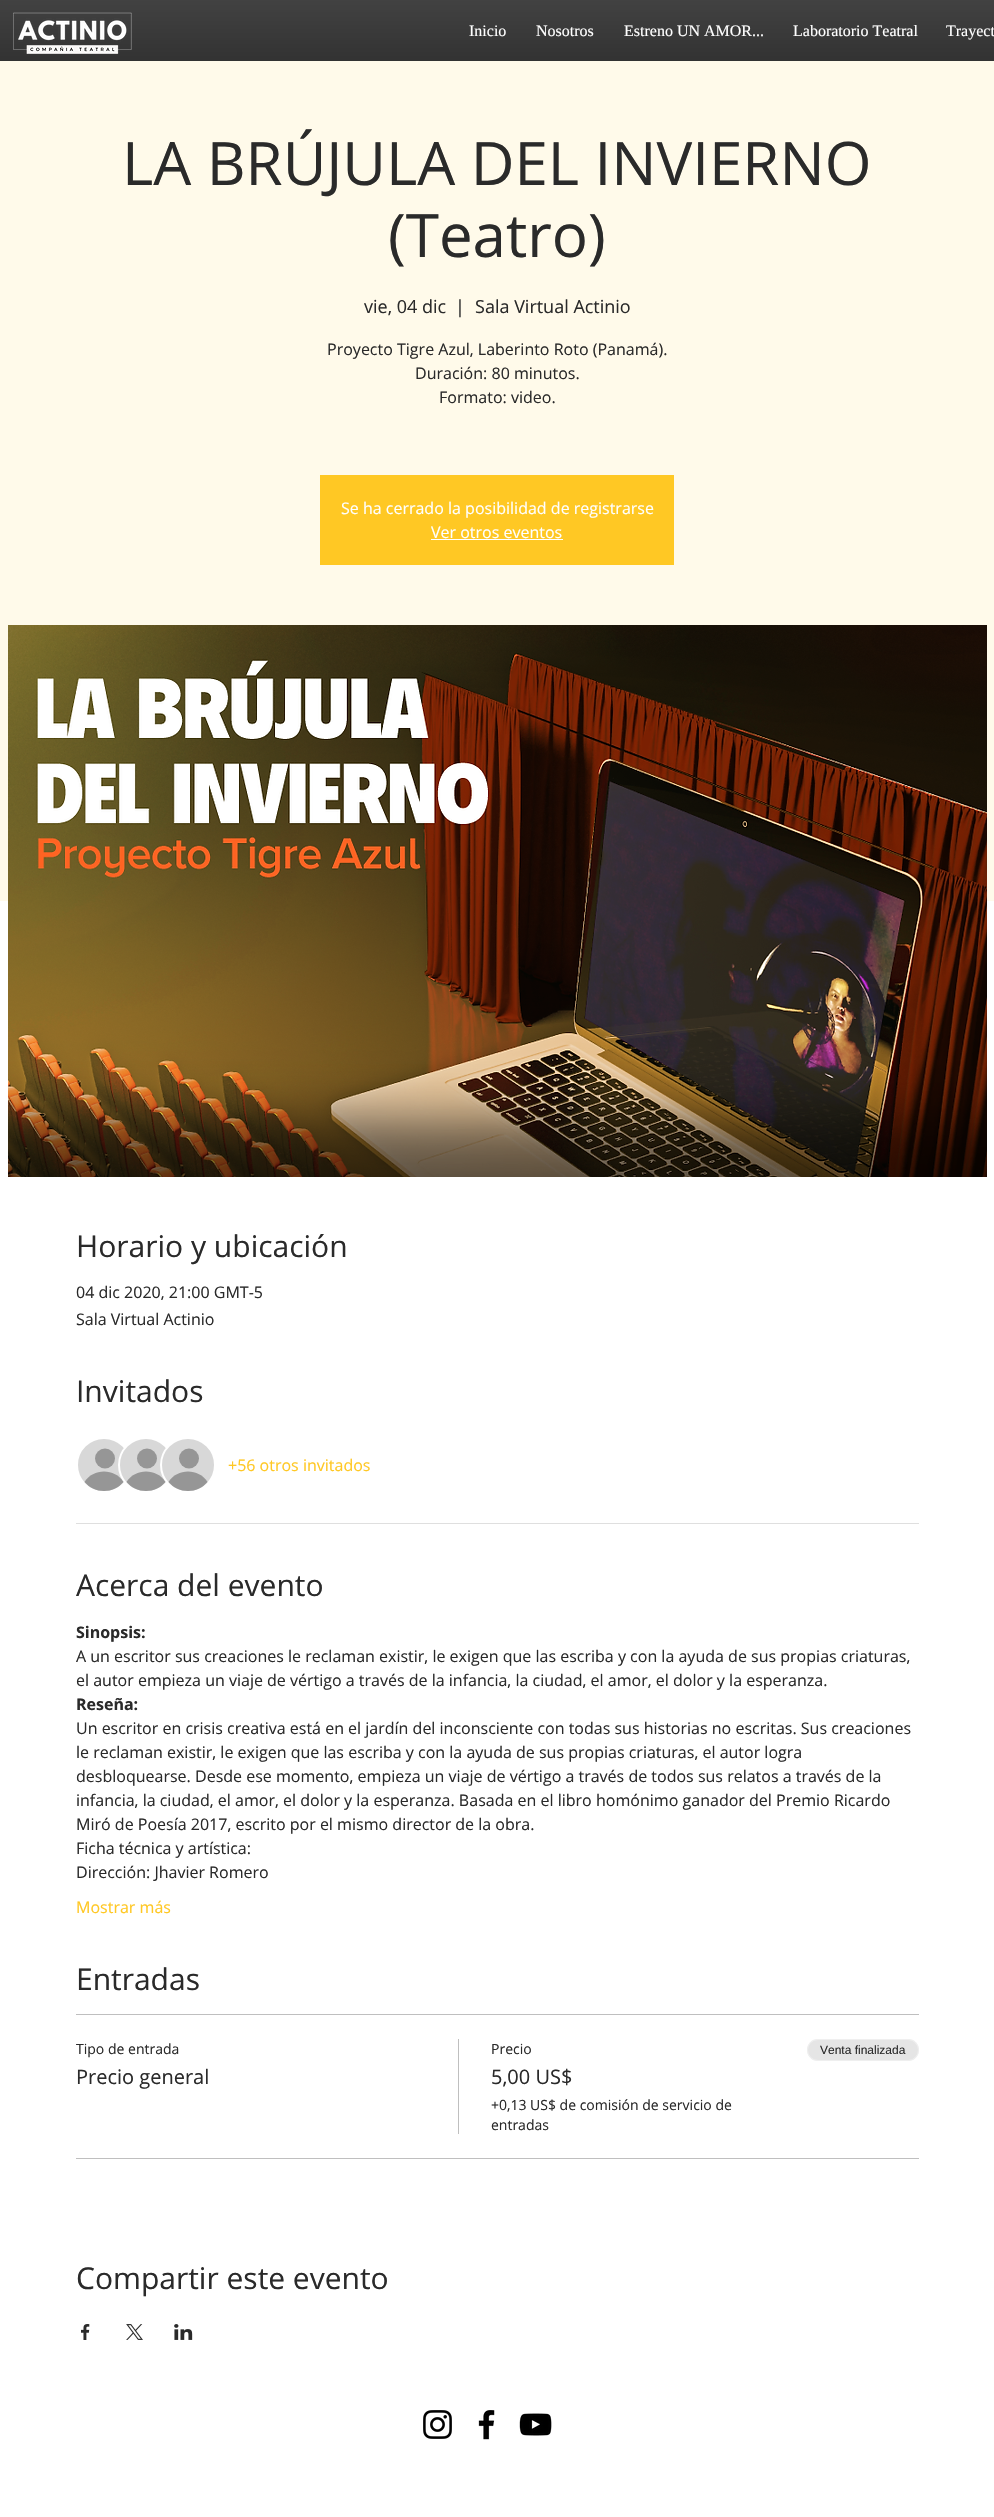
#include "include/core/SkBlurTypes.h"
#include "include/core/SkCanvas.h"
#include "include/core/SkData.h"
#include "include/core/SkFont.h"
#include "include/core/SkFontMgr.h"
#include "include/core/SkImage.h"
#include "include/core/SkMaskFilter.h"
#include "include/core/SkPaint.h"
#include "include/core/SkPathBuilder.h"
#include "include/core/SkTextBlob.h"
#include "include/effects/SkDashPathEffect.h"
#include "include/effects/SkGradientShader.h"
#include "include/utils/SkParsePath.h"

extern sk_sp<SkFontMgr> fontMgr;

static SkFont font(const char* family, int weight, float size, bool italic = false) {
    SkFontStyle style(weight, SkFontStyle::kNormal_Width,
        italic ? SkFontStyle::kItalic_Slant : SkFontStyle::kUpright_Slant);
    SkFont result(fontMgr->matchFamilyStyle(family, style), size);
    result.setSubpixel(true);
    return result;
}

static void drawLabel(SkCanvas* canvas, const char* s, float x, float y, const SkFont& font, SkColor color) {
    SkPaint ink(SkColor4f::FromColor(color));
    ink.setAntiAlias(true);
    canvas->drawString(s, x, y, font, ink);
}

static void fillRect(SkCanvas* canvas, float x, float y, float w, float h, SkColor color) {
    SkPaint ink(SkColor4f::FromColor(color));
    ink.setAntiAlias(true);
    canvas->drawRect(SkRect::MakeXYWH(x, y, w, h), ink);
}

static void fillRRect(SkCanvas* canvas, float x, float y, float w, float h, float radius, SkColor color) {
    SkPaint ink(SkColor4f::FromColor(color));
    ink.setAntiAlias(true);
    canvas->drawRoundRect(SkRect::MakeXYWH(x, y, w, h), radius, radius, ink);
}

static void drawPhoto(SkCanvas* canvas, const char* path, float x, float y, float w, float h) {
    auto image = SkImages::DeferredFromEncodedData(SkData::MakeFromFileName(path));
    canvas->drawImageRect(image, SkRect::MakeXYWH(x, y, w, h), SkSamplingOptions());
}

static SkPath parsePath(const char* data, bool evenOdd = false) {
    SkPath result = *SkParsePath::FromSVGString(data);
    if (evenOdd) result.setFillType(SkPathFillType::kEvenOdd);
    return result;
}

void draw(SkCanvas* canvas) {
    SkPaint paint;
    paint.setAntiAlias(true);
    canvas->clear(0xFFFFFFFF);
    fillRect(canvas, 0, 0, 994, 61, 0xFF000000);
    drawPhoto(canvas, "assets/img1.png", 0, 0, 994, 61);
    drawPhoto(canvas, "assets/img2.png", 13, 12, 119, 42);
    SkFont font1 = font("Liberation Serif", 400, 16);
    drawLabel(canvas, "Inicio", 469, 36, font1, 0xFFFFFFFF);
    drawLabel(canvas, "Nosotros", 536, 36, font1, 0xFFFFFFFF);
    drawLabel(canvas, "Estreno UN AMOR...", 624, 36, font1, 0xFFFFFFFF);
    drawLabel(canvas, "Laboratorio Teatral", 793, 36, font1, 0xFFFFFFFF);
    drawLabel(canvas, "Trayect", 946, 36, font1, 0xFFFFFFFF);
    fillRect(canvas, 0, 61, 994, 840, 0xFFFFFAEA);
    SkFont font2 = font("Open Sans", 400, 60);
    drawLabel(canvas, "LA BRÚJULA DEL INVIERNO", 122, 185, font2, 0xFF2A2A2A);
    drawLabel(canvas, "(Teatro)", 388, 257, font2, 0xFF2A2A2A);
    SkFont font3 = font("Open Sans", 400, 18);
    drawLabel(canvas, "vie, 04 dic", 364, 313, font3, 0xFF2A2A2A);
    drawLabel(canvas, "|", 455, 313, font3, 0xFF2A2A2A);
    drawLabel(canvas, "Sala Virtual Actinio", 475, 313, font3, 0xFF2A2A2A);
    SkFont font4 = font("Open Sans", 400, 16);
    drawLabel(canvas, "Proyecto Tigre Azul, Laberinto Roto (Panamá).", 327, 355, font4, 0xFF2A2A2A);
    drawLabel(canvas, "Duración: 80 minutos.", 415, 379, font4, 0xFF2A2A2A);
    drawLabel(canvas, "Formato: video.", 439, 403, font4, 0xFF2A2A2A);
    fillRect(canvas, 320, 475, 354, 90, 0xFFFFC824);
    drawLabel(canvas, "Se ha cerrado la posibilidad de registrarse", 341, 514, font4, 0xFFFFFFFF);
    drawLabel(canvas, "Ver otros eventos", 431, 538, font4, 0xFFFFFFFF);
    fillRect(canvas, 431, 539, 132, 1, 0xFFFFFFFF);
    drawPhoto(canvas, "assets/img3.png", 8, 625, 979, 552);
    SkFont font5 = font("Open Sans", 400, 30);
    drawLabel(canvas, "Horario y ubicación", 76, 1257, font5, 0xFF2A2A2A);
    drawLabel(canvas, "04 dic 2020, 21:00 GMT-5", 76, 1298, font4, 0xFF2A2A2A);
    drawLabel(canvas, "Sala Virtual Actinio", 76, 1325, font4, 0xFF2A2A2A);
    drawLabel(canvas, "Invitados", 76, 1402, font5, 0xFF2A2A2A);
    paint.setColor(0xFFD8D8D8);
    canvas->drawCircle(104, 1465, 27, paint);
    paint.setStroke(true);
    paint.setStrokeWidth(2);
    paint.setColor(0xFFFFFFFF);
    canvas->drawCircle(104, 1465, 27, paint);
    paint.setStroke(false);
    paint.setColor(0xFF969696);
    canvas->drawCircle(105, 1458.5f, 10, paint);
    canvas->drawPath(parsePath("M123.5 1482C113.5 1494 94.5 1494 84.5 1482C93 1468 115 1468 123.5 1482Z"), paint);
    paint.setColor(0xFFD8D8D8);
    canvas->drawCircle(146, 1465, 27, paint);
    paint.setStroke(true);
    paint.setColor(0xFFFFFFFF);
    canvas->drawCircle(146, 1465, 27, paint);
    paint.setStroke(false);
    paint.setColor(0xFF969696);
    canvas->drawCircle(147, 1458.5f, 10, paint);
    canvas->drawPath(parsePath("M165.5 1482C155.5 1494 136.5 1494 126.5 1482C135 1468 157 1468 165.5 1482Z"), paint);
    paint.setColor(0xFFD8D8D8);
    canvas->drawCircle(188, 1465, 27, paint);
    paint.setStroke(true);
    paint.setColor(0xFFFFFFFF);
    canvas->drawCircle(188, 1465, 27, paint);
    paint.setStroke(false);
    paint.setColor(0xFF969696);
    canvas->drawCircle(189, 1458.5f, 10, paint);
    canvas->drawPath(parsePath("M207.5 1482C197.5 1494 178.5 1494 168.5 1482C177 1468 199 1468 207.5 1482Z"), paint);
    drawLabel(canvas, "+56 otros invitados", 228, 1471, font4, 0xFFFFC824);
    fillRect(canvas, 76, 1523, 843, 1, 0xFFDFDFDF);
    drawLabel(canvas, "Acerca del evento", 76, 1596, font5, 0xFF2A2A2A);
    SkFont font6 = font("Open Sans", 700, 16);
    drawLabel(canvas, "Sinopsis:", 76, 1638, font6, 0xFF2A2A2A);
    drawLabel(canvas, "A un escritor sus creaciones le reclaman existir, le exigen que las escriba y con la ayuda de sus propias criaturas,", 76, 1662, font4, 0xFF2A2A2A);
    drawLabel(canvas, "el autor empieza un viaje de vértigo a través de la infancia, la ciudad, el amor, el dolor y la esperanza.", 76, 1686, font4, 0xFF2A2A2A);
    drawLabel(canvas, "Reseña:", 76, 1710, font6, 0xFF2A2A2A);
    drawLabel(canvas, "Un escritor en crisis creativa está en el jardín del inconsciente con todas sus historias no escritas. Sus creaciones", 76, 1734, font4, 0xFF2A2A2A);
    drawLabel(canvas, "le reclaman existir, le exigen que las escriba y con la ayuda de sus propias criaturas, el autor logra", 76, 1758, font4, 0xFF2A2A2A);
    drawLabel(canvas, "desbloquearse. Desde ese momento, empieza un viaje de vértigo a través de todos sus relatos a través de la", 76, 1782, font4, 0xFF2A2A2A);
    drawLabel(canvas, "infancia, la ciudad, el amor, el dolor y la esperanza. Basada en el libro homónimo ganador del Premio Ricardo", 76, 1806, font4, 0xFF2A2A2A);
    drawLabel(canvas, "Miró de Poesía 2017, escrito por el mismo director de la obra.", 76, 1830, font4, 0xFF2A2A2A);
    drawLabel(canvas, "Ficha técnica y artística:", 76, 1854, font4, 0xFF2A2A2A);
    drawLabel(canvas, "Dirección: Jhavier Romero", 76, 1878, font4, 0xFF2A2A2A);
    drawLabel(canvas, "Mostrar más", 76, 1913, font4, 0xFFFFC824);
    drawLabel(canvas, "Entradas", 76, 1990, font5, 0xFF2A2A2A);
    fillRect(canvas, 76, 2014, 843, 1, 0xFFBFBFBF);
    fillRect(canvas, 76, 2158, 843, 1, 0xFFBFBFBF);
    SkFont font7 = font("Open Sans", 400, 14);
    drawLabel(canvas, "Tipo de entrada", 76, 2054, font7, 0xFF2A2A2A);
    SkFont font8 = font("Open Sans", 400, 20);
    drawLabel(canvas, "Precio general", 76, 2084, font8, 0xFF2A2A2A);
    fillRect(canvas, 458, 2039, 1, 95, 0xFFBFBFBF);
    drawLabel(canvas, "Precio", 491, 2054, font7, 0xFF2A2A2A);
    drawLabel(canvas, "5,00 US$", 491, 2084, font8, 0xFF2A2A2A);
    drawLabel(canvas, "+0,13 US$ de comisión de servicio de", 491, 2110, font7, 0xFF2A2A2A);
    drawLabel(canvas, "entradas", 491, 2130, font7, 0xFF2A2A2A);
    fillRRect(canvas, 807, 2039, 112, 22, 11, 0xFFE5E5E5);
    paint.setStroke(true);
    paint.setStrokeWidth(1);
    paint.setColor(0x66FFFFFF);
    canvas->drawRoundRect(SkRect::MakeXYWH(807.5f, 2039.5f, 111, 21), 10.5f, 10.5f, paint);
    SkFont font9 = font("Liberation Sans", 400, 12);
    drawLabel(canvas, "Venta finalizada", 820, 2054, font9, 0xFF2A2A2A);
    drawLabel(canvas, "Compartir este evento", 76, 2289, font5, 0xFF2A2A2A);
    drawPhoto(canvas, "assets/img4.png", 81, 2324, 9, 16);
    drawPhoto(canvas, "assets/img5.png", 126, 2324, 17, 16);
    drawPhoto(canvas, "assets/img6.png", 174, 2324, 19, 16);
    drawPhoto(canvas, "assets/img7.png", 423, 2410, 29, 29);
    drawPhoto(canvas, "assets/img8.png", 478, 2410, 17, 30);
    drawPhoto(canvas, "assets/img9.png", 519, 2413, 33, 23);
}
